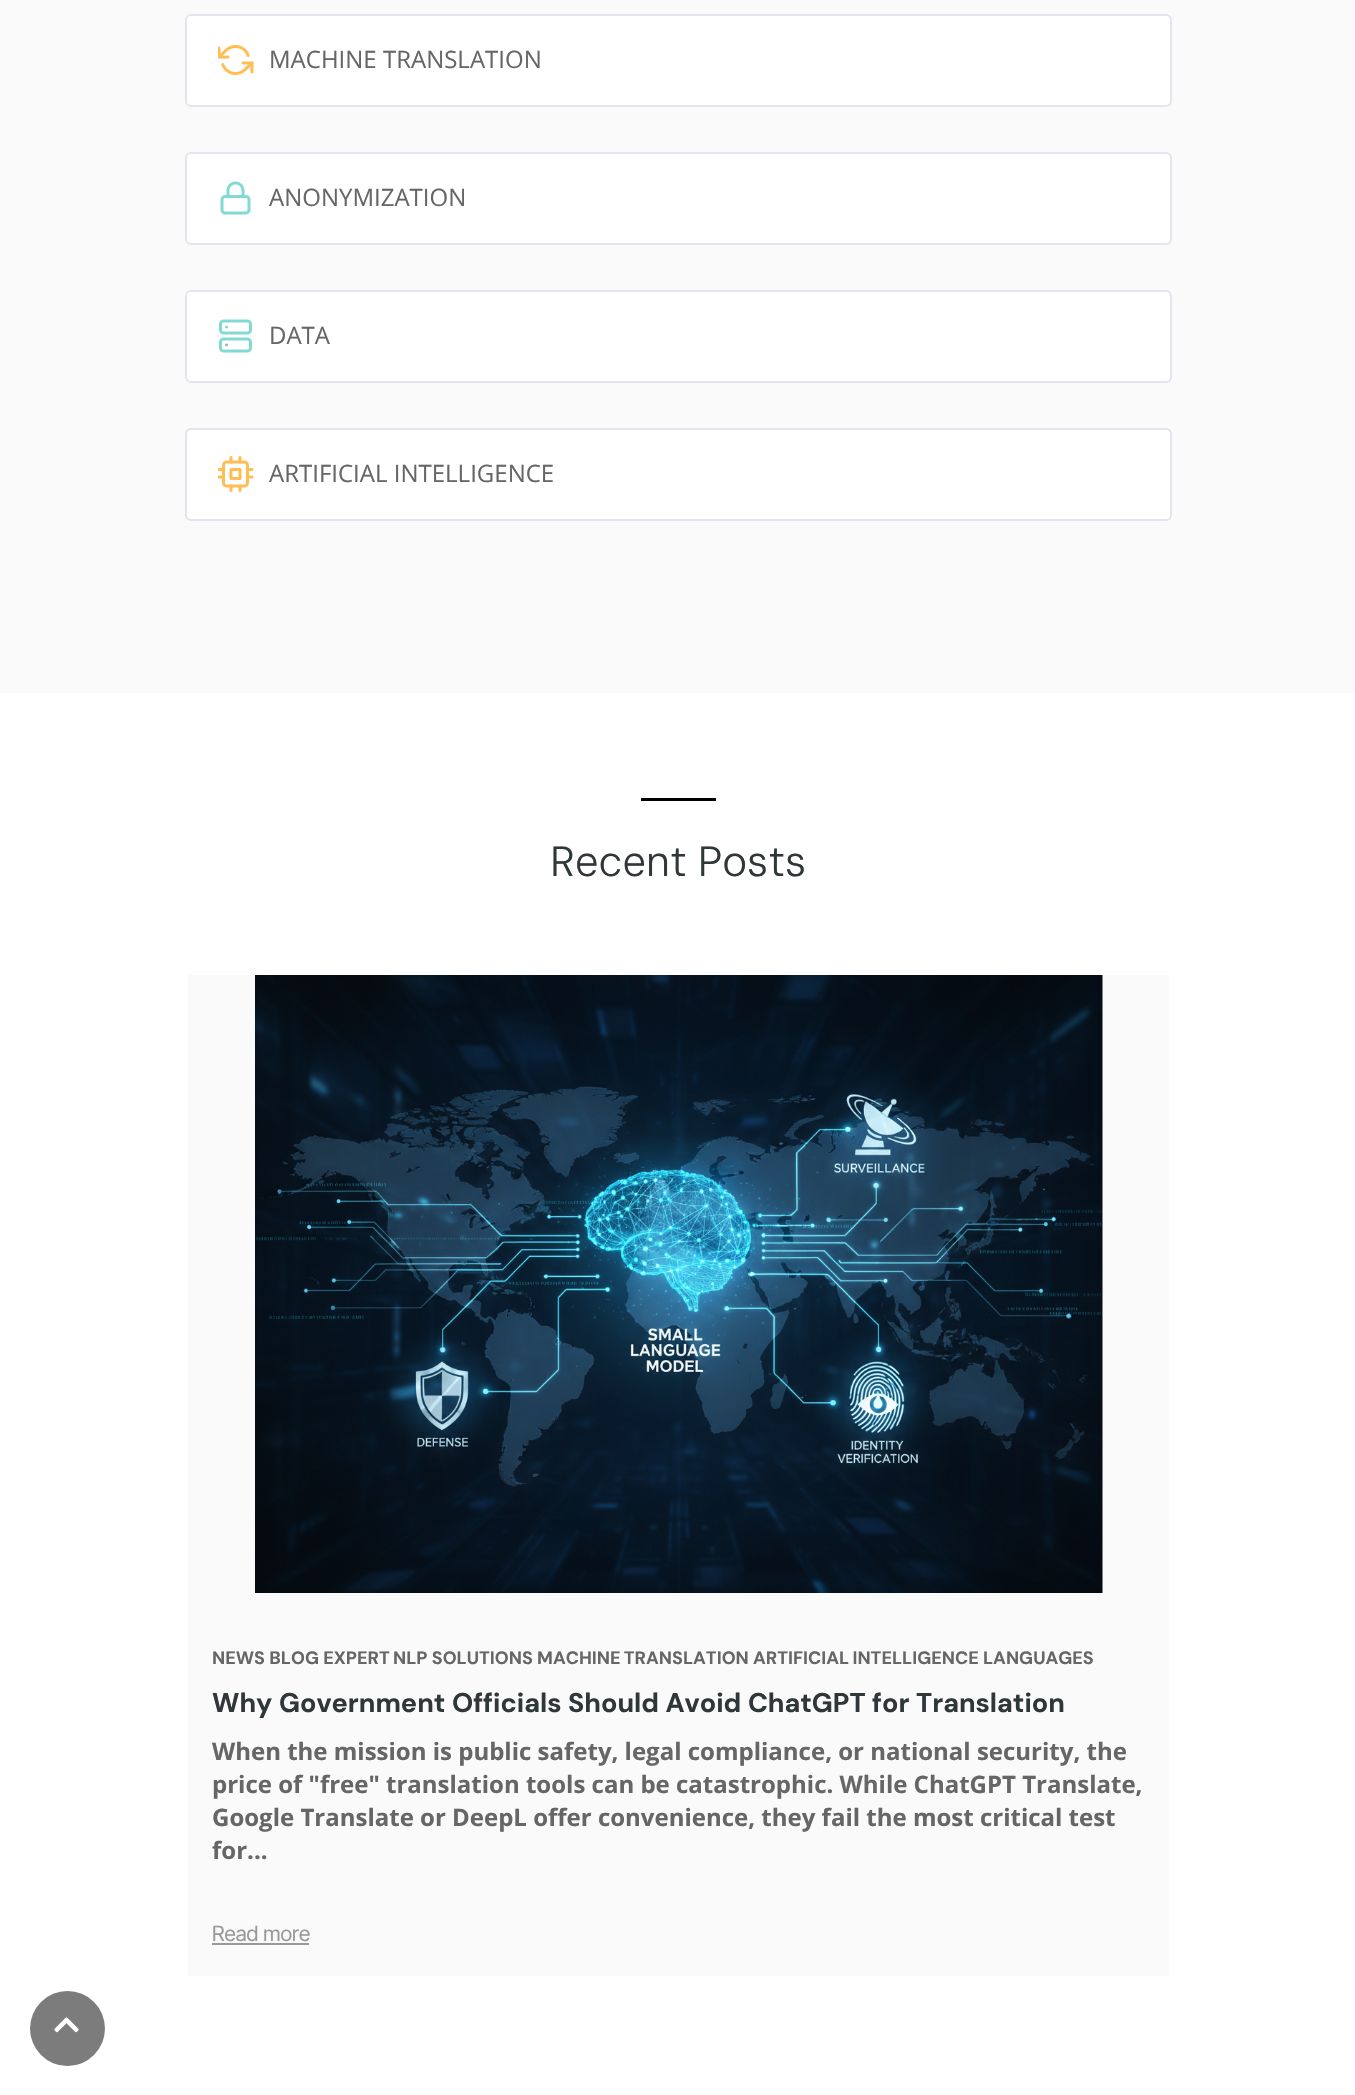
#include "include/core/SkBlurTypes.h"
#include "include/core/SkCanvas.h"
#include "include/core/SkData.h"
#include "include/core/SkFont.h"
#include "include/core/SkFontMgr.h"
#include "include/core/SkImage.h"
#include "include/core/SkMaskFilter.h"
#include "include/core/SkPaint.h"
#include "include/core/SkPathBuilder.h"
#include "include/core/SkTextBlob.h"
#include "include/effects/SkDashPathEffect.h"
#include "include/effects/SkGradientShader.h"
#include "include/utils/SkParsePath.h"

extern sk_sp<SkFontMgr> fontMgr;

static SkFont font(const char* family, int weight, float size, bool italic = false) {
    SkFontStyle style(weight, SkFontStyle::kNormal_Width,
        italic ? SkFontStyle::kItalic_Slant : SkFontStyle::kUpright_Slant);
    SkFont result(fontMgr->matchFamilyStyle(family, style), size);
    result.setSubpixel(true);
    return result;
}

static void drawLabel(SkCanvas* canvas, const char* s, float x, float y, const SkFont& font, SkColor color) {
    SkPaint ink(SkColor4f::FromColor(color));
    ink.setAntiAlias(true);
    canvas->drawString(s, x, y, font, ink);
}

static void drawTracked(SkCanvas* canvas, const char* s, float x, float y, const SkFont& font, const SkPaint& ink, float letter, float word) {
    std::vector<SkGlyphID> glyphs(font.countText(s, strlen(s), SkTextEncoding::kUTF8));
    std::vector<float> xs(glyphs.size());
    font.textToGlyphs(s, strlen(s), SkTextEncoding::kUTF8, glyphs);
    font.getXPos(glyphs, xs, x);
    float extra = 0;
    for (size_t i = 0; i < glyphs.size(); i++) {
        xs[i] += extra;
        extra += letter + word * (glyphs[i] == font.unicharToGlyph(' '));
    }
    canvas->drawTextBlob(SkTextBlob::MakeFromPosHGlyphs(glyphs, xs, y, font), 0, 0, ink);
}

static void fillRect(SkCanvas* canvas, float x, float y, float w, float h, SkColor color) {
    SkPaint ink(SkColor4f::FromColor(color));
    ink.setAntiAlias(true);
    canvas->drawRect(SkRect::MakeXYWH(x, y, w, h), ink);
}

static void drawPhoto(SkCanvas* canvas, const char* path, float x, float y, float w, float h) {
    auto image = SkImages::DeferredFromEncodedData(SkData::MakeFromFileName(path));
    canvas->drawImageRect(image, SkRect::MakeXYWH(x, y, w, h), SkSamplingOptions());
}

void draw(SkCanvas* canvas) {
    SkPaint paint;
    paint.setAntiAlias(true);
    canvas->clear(0xFFFFFFFF);
    fillRect(canvas, 0, 0, 1355, 693, 0xFFFAFAFA);
    paint.setColor(0xFFFFFFFF);
    canvas->drawRoundRect(SkRect::MakeXYWH(186, 15, 985, 91), 5, 5, paint);
    paint.setStroke(true);
    paint.setStrokeWidth(2);
    paint.setColor(0xFFE2E5EB);
    canvas->drawRoundRect(SkRect::MakeXYWH(186, 15, 985, 91), 5, 5, paint);
    drawPhoto(canvas, "assets/img1.png", 218, 45, 36, 30);
    SkFont font1 = font("Open Sans", 400, 24);
    drawLabel(canvas, "MACHINE TRANSLATION", 269, 68, font1, 0xFF666666);
    paint.setStroke(false);
    paint.setColor(0xFFFFFFFF);
    canvas->drawRoundRect(SkRect::MakeXYWH(186, 153, 985, 91), 5, 5, paint);
    paint.setStroke(true);
    paint.setColor(0xFFE2E5EB);
    canvas->drawRoundRect(SkRect::MakeXYWH(186, 153, 985, 91), 5, 5, paint);
    drawPhoto(canvas, "assets/img2.png", 220, 181, 31, 34);
    drawLabel(canvas, "ANONYMIZATION", 269, 206, font1, 0xFF666666);
    paint.setStroke(false);
    paint.setColor(0xFFFFFFFF);
    canvas->drawRoundRect(SkRect::MakeXYWH(186, 291, 985, 91), 5, 5, paint);
    paint.setStroke(true);
    paint.setColor(0xFFE2E5EB);
    canvas->drawRoundRect(SkRect::MakeXYWH(186, 291, 985, 91), 5, 5, paint);
    drawPhoto(canvas, "assets/img3.png", 219, 319, 33, 34);
    drawLabel(canvas, "DATA", 269, 344, font1, 0xFF666666);
    paint.setStroke(false);
    paint.setColor(0xFFFFFFFF);
    canvas->drawRoundRect(SkRect::MakeXYWH(186, 429, 985, 91), 5, 5, paint);
    paint.setStroke(true);
    paint.setColor(0xFFE2E5EB);
    canvas->drawRoundRect(SkRect::MakeXYWH(186, 429, 985, 91), 5, 5, paint);
    drawPhoto(canvas, "assets/img4.png", 218, 456, 36, 36);
    drawLabel(canvas, "ARTIFICIAL INTELLIGENCE", 269, 482, font1, 0xFF666666);
    fillRect(canvas, 641, 798, 75, 3, 0xFF000000);
    SkFont font2 = font("DM Sans", 300, 42);
    paint.setStroke(false);
    paint.setColor(0xFF303738);
    drawTracked(canvas, "Recent Posts", 550, 876, font2, paint, 0, -1);
    fillRect(canvas, 188, 975, 981, 1001, 0xFFFAFAFA);
    drawPhoto(canvas, "assets/img5.png", 255, 975, 848, 618);
    SkFont font3 = font("DM Sans", 700, 18);
    drawLabel(canvas, "NEWS BLOG EXPERT", 212, 1664, font3, 0xFF666666);
    drawLabel(canvas, "NLP SOLUTIONS", 393, 1664, font3, 0xFF666666);
    paint.setColor(0xFF666666);
    drawTracked(canvas, "MACHINE TRANSLATION", 537, 1664, font3, paint, 0, -1);
    drawTracked(canvas, "ARTIFICIAL INTELLIGENCE", 753, 1664, font3, paint, 0, -1);
    drawLabel(canvas, "LANGUAGES", 983, 1664, font3, 0xFF666666);
    SkFont font4 = font("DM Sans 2", 700, 27);
    paint.setColor(0xFF303738);
    drawTracked(canvas, "Why Government Officials Should Avoid ChatGPT for Translation", 212, 1712, font4, paint, 0, 0.25f);
    SkFont font5 = font("Open Sans", 700, 24);
    drawLabel(canvas, "When the mission is public safety, legal compliance, or national security, the", 212, 1760, font5, 0xFF666666);
    drawLabel(canvas, "price of \"free\" translation tools can be catastrophic. While ChatGPT Translate,", 212, 1793, font5, 0xFF666666);
    drawLabel(canvas, "Google Translate or DeepL offer convenience, they fail the most critical test", 212, 1826, font5, 0xFF666666);
    drawLabel(canvas, "for...", 212, 1859, font5, 0xFF666666);
    SkFont font6 = font("Inter Tight", 400, 21);
    drawLabel(canvas, "Read more", 212, 1941, font6, 0xFF999999);
    fillRect(canvas, 212, 1943, 97, 2, 0xFF999999);
    paint.setColor(0xFF7C7C7C);
    canvas->drawCircle(67.5f, 2028.5f, 37.5f, paint);
    drawPhoto(canvas, "assets/img6.png", 54, 2017, 25, 16);
}
